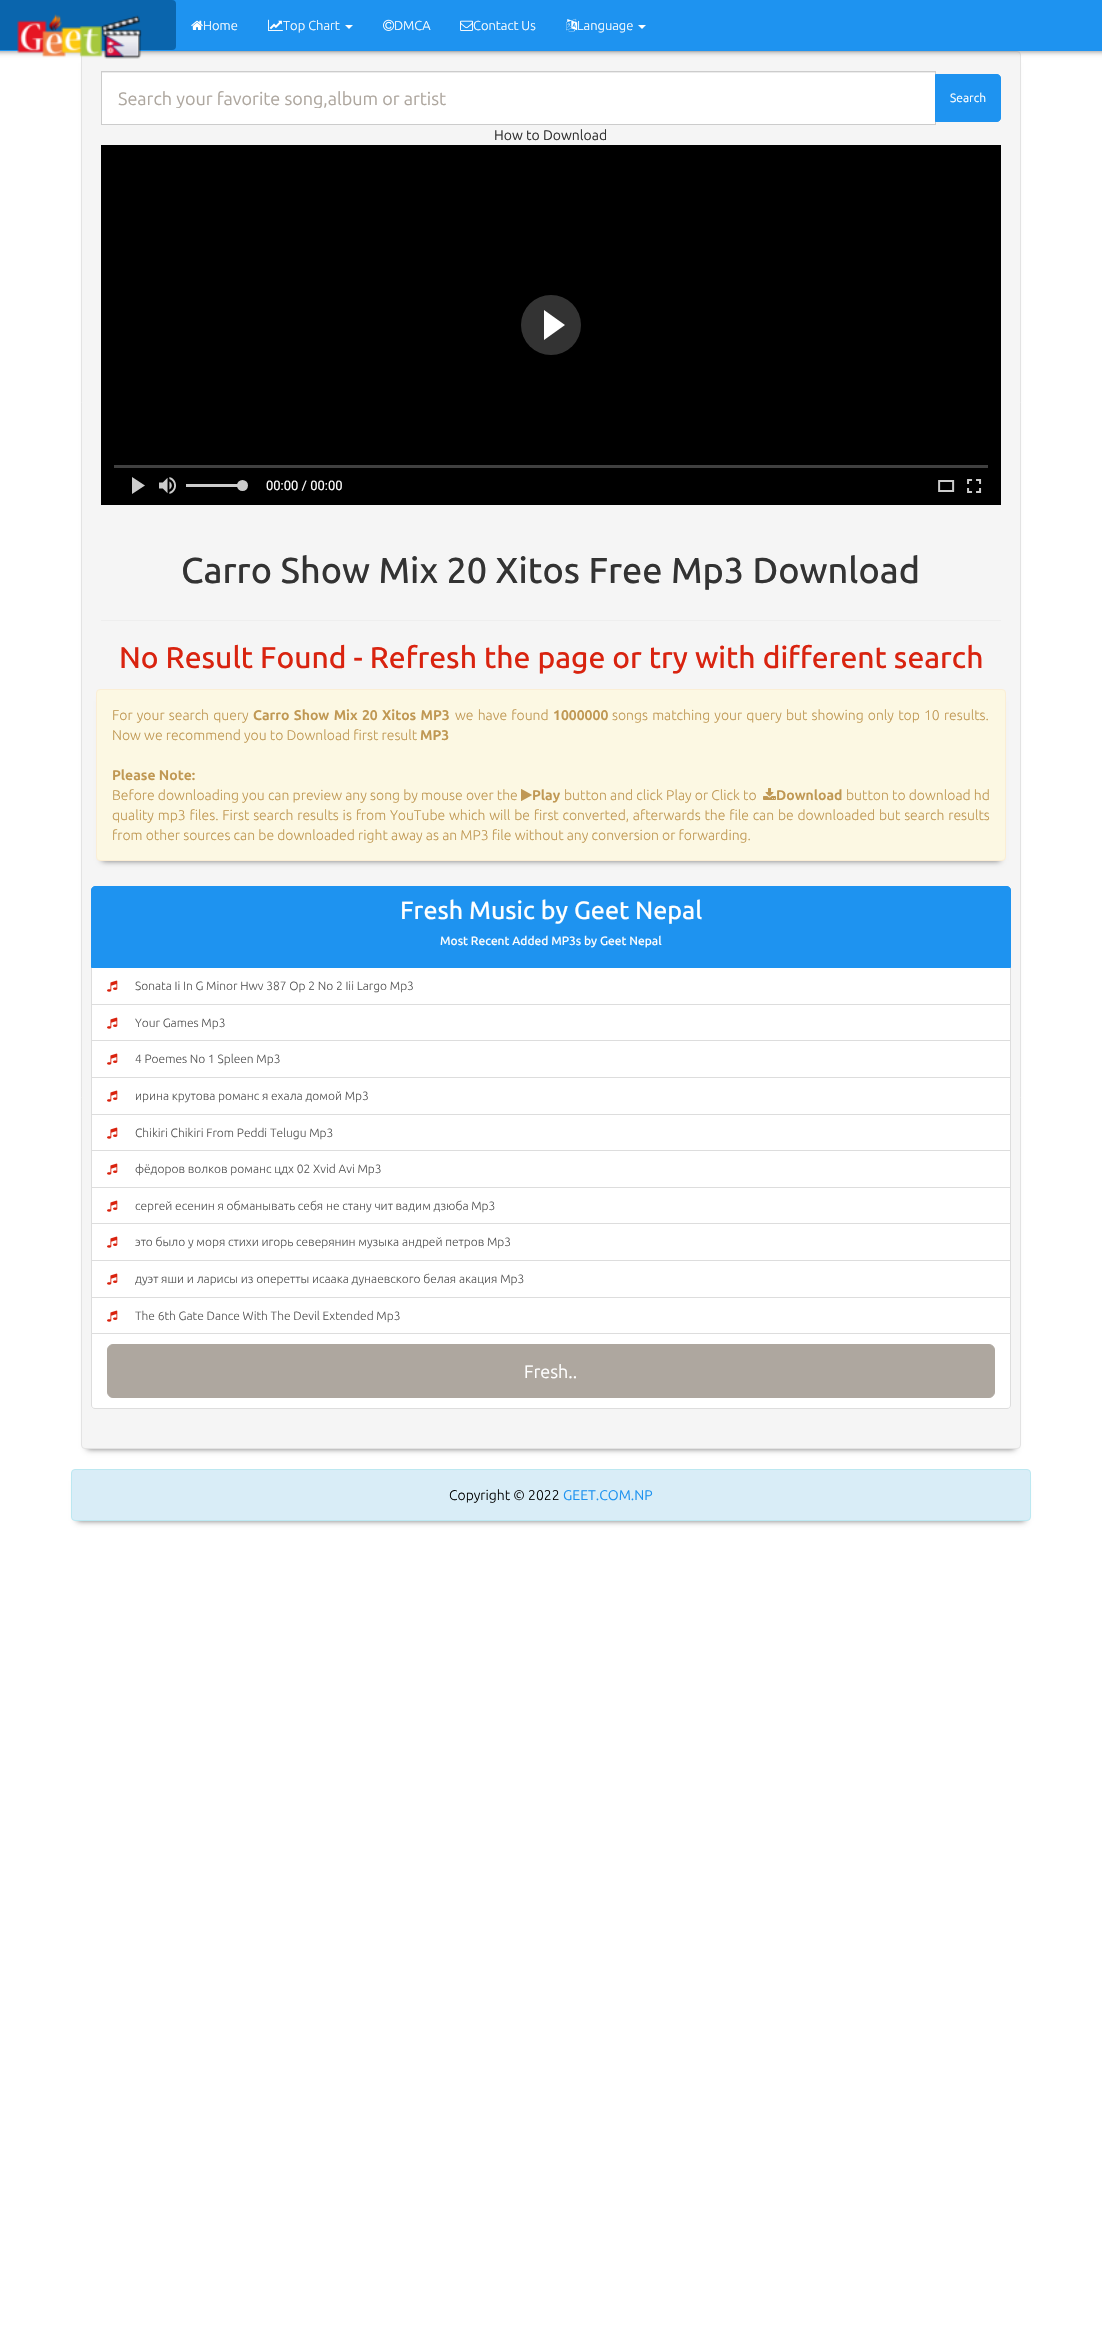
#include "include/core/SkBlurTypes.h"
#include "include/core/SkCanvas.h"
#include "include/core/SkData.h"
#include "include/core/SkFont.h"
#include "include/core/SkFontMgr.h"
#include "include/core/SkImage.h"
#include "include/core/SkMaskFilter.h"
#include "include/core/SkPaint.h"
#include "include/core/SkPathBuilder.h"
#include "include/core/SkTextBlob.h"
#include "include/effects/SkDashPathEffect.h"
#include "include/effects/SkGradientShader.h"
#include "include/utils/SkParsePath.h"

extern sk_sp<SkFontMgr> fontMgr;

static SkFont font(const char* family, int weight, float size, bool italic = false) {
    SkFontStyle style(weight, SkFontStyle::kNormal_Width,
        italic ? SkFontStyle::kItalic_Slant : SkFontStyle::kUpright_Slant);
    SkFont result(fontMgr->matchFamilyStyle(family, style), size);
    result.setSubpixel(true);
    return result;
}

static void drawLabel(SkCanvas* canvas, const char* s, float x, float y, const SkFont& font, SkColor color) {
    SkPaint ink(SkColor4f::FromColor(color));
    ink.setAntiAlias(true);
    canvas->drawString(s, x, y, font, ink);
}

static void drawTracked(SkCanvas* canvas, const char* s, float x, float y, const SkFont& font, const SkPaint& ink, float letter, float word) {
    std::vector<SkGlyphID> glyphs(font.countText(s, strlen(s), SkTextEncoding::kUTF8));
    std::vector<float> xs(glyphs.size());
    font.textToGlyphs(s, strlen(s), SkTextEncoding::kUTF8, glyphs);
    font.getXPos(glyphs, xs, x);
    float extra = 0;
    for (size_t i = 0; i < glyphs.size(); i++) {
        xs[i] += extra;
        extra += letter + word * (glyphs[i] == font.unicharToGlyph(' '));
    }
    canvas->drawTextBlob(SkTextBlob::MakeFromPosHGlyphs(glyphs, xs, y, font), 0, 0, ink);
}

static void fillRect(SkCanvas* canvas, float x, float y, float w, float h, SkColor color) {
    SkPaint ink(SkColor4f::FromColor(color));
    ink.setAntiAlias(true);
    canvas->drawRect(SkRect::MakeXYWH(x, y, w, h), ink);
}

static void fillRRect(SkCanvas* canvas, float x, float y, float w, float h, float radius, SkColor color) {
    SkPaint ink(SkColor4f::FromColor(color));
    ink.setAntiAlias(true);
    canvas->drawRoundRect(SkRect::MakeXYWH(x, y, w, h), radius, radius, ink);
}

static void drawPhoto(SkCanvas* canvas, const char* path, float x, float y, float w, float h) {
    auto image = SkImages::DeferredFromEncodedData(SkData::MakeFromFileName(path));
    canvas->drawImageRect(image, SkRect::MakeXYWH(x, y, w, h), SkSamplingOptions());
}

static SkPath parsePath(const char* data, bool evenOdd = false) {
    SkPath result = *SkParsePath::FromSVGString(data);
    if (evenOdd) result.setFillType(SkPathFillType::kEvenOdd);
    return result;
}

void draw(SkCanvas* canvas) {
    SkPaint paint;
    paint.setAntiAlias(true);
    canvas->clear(0xFFFFFFFF);
    paint.setColor(0xFF777777);
    paint.setMaskFilter(SkMaskFilter::MakeBlur(kNormal_SkBlurStyle, 3));
    canvas->drawRect(SkRect::MakeXYWH(87, 63, 928, 1386), paint);
    paint.setMaskFilter(nullptr);
    paint.setColor(0xFFF5F5F5);
    canvas->drawRoundRect(SkRect::MakeXYWH(81.5f, 51.5f, 939, 1397), 3.5f, 3.5f, paint);
    paint.setStroke(true);
    paint.setStrokeWidth(1);
    paint.setColor(0xFFE3E3E3);
    canvas->drawRoundRect(SkRect::MakeXYWH(81.5f, 51.5f, 939, 1397), 3.5f, 3.5f, paint);
    paint.setStroke(false);
    paint.setColor(0xFF777777);
    paint.setMaskFilter(SkMaskFilter::MakeBlur(kNormal_SkBlurStyle, 3));
    canvas->drawRect(SkRect::MakeXYWH(-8, 12, 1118, 39), paint);
    paint.setMaskFilter(nullptr);
    fillRect(canvas, 172, 0, 930, 50, 0xFF1E93F0);
    fillRect(canvas, 0, 50, 1102, 1, 0xFF1E93F0);
    fillRRect(canvas, -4, 0, 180, 50, 4, 0xFF0A65AD);
    drawPhoto(canvas, "assets/img1.png", 17, 14, 125, 45);
    drawPhoto(canvas, "assets/img2.png", 191, 20, 12, 10);
    SkFont font1 = font("Ubuntu", 300, 13);
    drawLabel(canvas, "Home", 203, 30, font1, 0xFFFFFFFF);
    drawPhoto(canvas, "assets/img3.png", 268, 19, 15, 12);
    drawLabel(canvas, "Top Chart", 283, 30, font1, 0xFFFFFFFF);
    paint.setColor(0xFFFFFFFF);
    canvas->drawPath(parsePath("M345 25H353L349 29Z"), paint);
    drawPhoto(canvas, "assets/img4.png", 383, 19, 12, 12);
    drawLabel(canvas, "DMCA", 394, 30, font1, 0xFFFFFFFF);
    drawPhoto(canvas, "assets/img5.png", 460, 20, 13, 11);
    drawLabel(canvas, "Contact Us", 473, 30, font1, 0xFFFFFFFF);
    drawPhoto(canvas, "assets/img6.png", 566, 18, 12, 14);
    drawLabel(canvas, "Language", 577, 30, font1, 0xFFFFFFFF);
    canvas->drawPath(parsePath("M638 25H646L642 29Z"), paint);
    fillRect(canvas, 102, 73, 833, 51, 0xFFFFFFFF);
    fillRect(canvas, 102, 72, 833, 1, 0xFFECECEC);
    paint.setStroke(true);
    paint.setColor(0xFFCCCCCC);
    canvas->drawRect(SkRect::MakeXYWH(101.5f, 71.5f, 834, 53), paint);
    canvas->save();
    canvas->clipRect(SkRect::MakeXYWH(118, 88, 801, 20));
    SkFont font2 = font("Ubuntu", 400, 18);
    drawLabel(canvas, "Search your favorite song,album or artist", 118, 105, font2, 0xFFAEA79F);
    canvas->restore();
    paint.setStroke(false);
    paint.setColor(0xFF1E93F0);
    canvas->drawPath(parsePath("M935.5 74.5H997C999 74.5 1000.5 76 1000.5 78V118C1000.5 120 999 121.5 997 121.5H935.5Z"), paint);
    paint.setStroke(true);
    canvas->drawPath(parsePath("M935.5 74.5H997C999 74.5 1000.5 76 1000.5 78V118C1000.5 120 999 121.5 997 121.5H935.5Z"), paint);
    SkFont font3 = font("Ubuntu", 400, 12);
    drawLabel(canvas, "Search", 950, 102, font3, 0xFFFFFFFF);
    SkFont font4 = font("Ubuntu", 400, 14);
    drawLabel(canvas, "How to Download", 494, 140, font4, 0xFF333333);
    fillRect(canvas, 101, 145, 900, 360, 0xFF000000);
    paint.setStroke(false);
    paint.setColor(0xFF333333);
    canvas->drawCircle(551, 325, 30, paint);
    paint.setColor(0xFFFFFFFF);
    canvas->drawPath(parsePath("M544 340V310L565 325Z"), paint);
    fillRect(canvas, 114, 465, 874, 3, 0xFF404040);
    drawPhoto(canvas, "assets/img7.png", 132, 477, 13, 17);
    drawPhoto(canvas, "assets/img8.png", 159, 477, 17, 17);
    fillRect(canvas, 186, 484, 56, 3, 0xFFCCCCCC);
    paint.setColor(0xFFCCCCCC);
    canvas->drawCircle(242.5f, 485.5f, 5.5f, paint);
    SkFont font5 = font("Roboto", 400, 13);
    drawLabel(canvas, "00:00 / 00:00", 266, 490, font5, 0xFFFFFFFF);
    drawPhoto(canvas, "assets/img9.png", 938, 480, 17, 12);
    drawPhoto(canvas, "assets/img10.png", 967, 479, 15, 14);
    SkFont font6 = font("Ubuntu", 500, 36);
    drawLabel(canvas, "Carro Show Mix 20 Xitos Free Mp3 Download", 181, 583, font6, 0xFF333333);
    fillRect(canvas, 101, 620, 900, 1, 0xFFEEEEEE);
    SkFont font7 = font("Ubuntu", 500, 30);
    drawLabel(canvas, "No Result Found - Refresh the page or try with different search", 119, 668, font7, 0xFFD9230F);
    paint.setColor(0xFF777777);
    paint.setMaskFilter(SkMaskFilter::MakeBlur(kNormal_SkBlurStyle, 3));
    canvas->drawRect(SkRect::MakeXYWH(102, 701, 898, 160), paint);
    paint.setMaskFilter(nullptr);
    paint.setColor(0xFFFCF8E3);
    canvas->drawRoundRect(SkRect::MakeXYWH(96.5f, 689.5f, 909, 171), 3.5f, 3.5f, paint);
    paint.setStroke(true);
    paint.setColor(0xFFFBEED5);
    canvas->drawRoundRect(SkRect::MakeXYWH(96.5f, 689.5f, 909, 171), 3.5f, 3.5f, paint);
    SkFont font8 = font("Ubuntu", 300, 14);
    paint.setStroke(false);
    paint.setColor(0xFFC09853);
    drawTracked(canvas, "For your search query", 112, 720, font8, paint, 0, 1);
    SkFont font9 = font("Ubuntu", 700, 14);
    drawTracked(canvas, "Carro Show Mix 20 Xitos MP3", 253, 720, font9, paint, 0, 1);
    drawTracked(canvas, "we have found", 455, 720, font8, paint, 0, 1);
    drawLabel(canvas, "1000000", 553, 720, font9, 0xFFC09853);
    drawTracked(canvas, "songs matching your query but showing only top 10 results.", 612, 720, font8, paint, 0, 1);
    drawLabel(canvas, "Now we recommend you to Download first result", 112, 740, font8, 0xFFC09853);
    drawLabel(canvas, "MP3", 420, 740, font9, 0xFFC09853);
    drawLabel(canvas, "Please Note:", 112, 780, font9, 0xFFC09853);
    drawLabel(canvas, "Before downloading you can preview any song by mouse over the", 112, 800, font8, 0xFFC09853);
    drawPhoto(canvas, "assets/img11.png", 521, 789, 11, 12);
    drawLabel(canvas, "Play", 532, 800, font9, 0xFFC09853);
    drawLabel(canvas, "button and click Play or Click to", 564, 800, font8, 0xFFC09853);
    drawPhoto(canvas, "assets/img12.png", 763, 788, 13, 12);
    drawLabel(canvas, "Download", 776, 800, font9, 0xFFC09853);
    drawLabel(canvas, "button to download hd", 846, 800, font8, 0xFFC09853);
    drawTracked(canvas, "quality mp3 files. First search results is from YouTube which will be first converted, afterwards the file can be downloaded but search results", 112, 820, font8, paint, 0, 0.6f);
    drawLabel(canvas, "from other sources can be downloaded right away as an MP3 file without any conversion or forwarding.", 112, 840, font8, 0xFFC09853);
    paint.setColor(0xFFFFFFFF);
    canvas->drawRect(SkRect::MakeXYWH(91.5f, 967.5f, 919, 37), paint);
    paint.setStroke(true);
    paint.setColor(0xFFDDDDDD);
    canvas->drawRect(SkRect::MakeXYWH(91.5f, 967.5f, 919, 37), paint);
    paint.setStroke(false);
    paint.setColor(0xFF1E93F0);
    canvas->drawPath(parsePath("M95 886.5H1007C1009 886.5 1010.5 888 1010.5 890V967.5H91.5V890C91.5 888 93 886.5 95 886.5Z"), paint);
    paint.setStroke(true);
    canvas->drawPath(parsePath("M95 886.5H1007C1009 886.5 1010.5 888 1010.5 890V967.5H91.5V890C91.5 888 93 886.5 95 886.5Z"), paint);
    SkFont font10 = font("Ubuntu", 500, 25);
    drawLabel(canvas, "Fresh Music by Geet Nepal", 400, 919, font10, 0xFFFFFFFF);
    SkFont font11 = font("Ubuntu", 500, 12);
    drawLabel(canvas, "Most Recent Added MP3s by Geet Nepal", 440, 945, font11, 0xFFFFFFFF);
    drawPhoto(canvas, "assets/img13.png", 107, 980, 11, 12);
    SkFont font12 = font("Ubuntu", 300, 12);
    drawLabel(canvas, "Sonata Ii In G Minor Hwv 387 Op 2 No 2 Iii Largo Mp3", 135, 990, font12, 0xFF555555);
    paint.setStroke(false);
    paint.setColor(0xFFFFFFFF);
    canvas->drawRect(SkRect::MakeXYWH(91.5f, 1004.5f, 919, 36), paint);
    paint.setStroke(true);
    paint.setColor(0xFFDDDDDD);
    canvas->drawRect(SkRect::MakeXYWH(91.5f, 1004.5f, 919, 36), paint);
    drawPhoto(canvas, "assets/img13.png", 107, 1017, 11, 12);
    drawLabel(canvas, "Your Games Mp3", 135, 1027, font12, 0xFF555555);
    paint.setStroke(false);
    paint.setColor(0xFFFFFFFF);
    canvas->drawRect(SkRect::MakeXYWH(91.5f, 1040.5f, 919, 37), paint);
    paint.setStroke(true);
    paint.setColor(0xFFDDDDDD);
    canvas->drawRect(SkRect::MakeXYWH(91.5f, 1040.5f, 919, 37), paint);
    drawPhoto(canvas, "assets/img13.png", 107, 1053, 11, 12);
    drawLabel(canvas, "4 Poemes No 1 Spleen Mp3", 135, 1063, font12, 0xFF555555);
    paint.setStroke(false);
    paint.setColor(0xFFFFFFFF);
    canvas->drawRect(SkRect::MakeXYWH(91.5f, 1077.5f, 919, 37), paint);
    paint.setStroke(true);
    paint.setColor(0xFFDDDDDD);
    canvas->drawRect(SkRect::MakeXYWH(91.5f, 1077.5f, 919, 37), paint);
    drawPhoto(canvas, "assets/img13.png", 107, 1090, 11, 12);
    drawLabel(canvas, "ирина крутова романс я ехала домой Mp3", 135, 1100, font12, 0xFF555555);
    paint.setStroke(false);
    paint.setColor(0xFFFFFFFF);
    canvas->drawRect(SkRect::MakeXYWH(91.5f, 1114.5f, 919, 36), paint);
    paint.setStroke(true);
    paint.setColor(0xFFDDDDDD);
    canvas->drawRect(SkRect::MakeXYWH(91.5f, 1114.5f, 919, 36), paint);
    drawPhoto(canvas, "assets/img13.png", 107, 1127, 11, 12);
    drawLabel(canvas, "Chikiri Chikiri From Peddi Telugu Mp3", 135, 1137, font12, 0xFF555555);
    paint.setStroke(false);
    paint.setColor(0xFFFFFFFF);
    canvas->drawRect(SkRect::MakeXYWH(91.5f, 1150.5f, 919, 37), paint);
    paint.setStroke(true);
    paint.setColor(0xFFDDDDDD);
    canvas->drawRect(SkRect::MakeXYWH(91.5f, 1150.5f, 919, 37), paint);
    drawPhoto(canvas, "assets/img13.png", 107, 1163, 11, 12);
    drawLabel(canvas, "фёдоров волков романс цдх 02 Xvid Avi Mp3", 135, 1173, font12, 0xFF555555);
    paint.setStroke(false);
    paint.setColor(0xFFFFFFFF);
    canvas->drawRect(SkRect::MakeXYWH(91.5f, 1187.5f, 919, 36), paint);
    paint.setStroke(true);
    paint.setColor(0xFFDDDDDD);
    canvas->drawRect(SkRect::MakeXYWH(91.5f, 1187.5f, 919, 36), paint);
    drawPhoto(canvas, "assets/img13.png", 107, 1200, 11, 12);
    drawLabel(canvas, "сергей есенин я обманывать себя не стану чит вадим дзюба Mp3", 135, 1210, font12, 0xFF555555);
    paint.setStroke(false);
    paint.setColor(0xFFFFFFFF);
    canvas->drawRect(SkRect::MakeXYWH(91.5f, 1223.5f, 919, 37), paint);
    paint.setStroke(true);
    paint.setColor(0xFFDDDDDD);
    canvas->drawRect(SkRect::MakeXYWH(91.5f, 1223.5f, 919, 37), paint);
    drawPhoto(canvas, "assets/img13.png", 107, 1236, 11, 12);
    drawLabel(canvas, "это было у моря стихи игорь северянин музыка андрей петров Mp3", 135, 1246, font12, 0xFF555555);
    paint.setStroke(false);
    paint.setColor(0xFFFFFFFF);
    canvas->drawRect(SkRect::MakeXYWH(91.5f, 1260.5f, 919, 37), paint);
    paint.setStroke(true);
    paint.setColor(0xFFDDDDDD);
    canvas->drawRect(SkRect::MakeXYWH(91.5f, 1260.5f, 919, 37), paint);
    drawPhoto(canvas, "assets/img13.png", 107, 1273, 11, 12);
    drawLabel(canvas, "дуэт яши и ларисы из оперетты исаака дунаевского белая акация Mp3", 135, 1283, font12, 0xFF555555);
    paint.setStroke(false);
    paint.setColor(0xFFFFFFFF);
    canvas->drawRect(SkRect::MakeXYWH(91.5f, 1297.5f, 919, 36), paint);
    paint.setStroke(true);
    paint.setColor(0xFFDDDDDD);
    canvas->drawRect(SkRect::MakeXYWH(91.5f, 1297.5f, 919, 36), paint);
    drawPhoto(canvas, "assets/img13.png", 107, 1310, 11, 12);
    drawLabel(canvas, "The 6th Gate Dance With The Devil Extended Mp3", 135, 1320, font12, 0xFF555555);
    paint.setStroke(false);
    paint.setColor(0xFFFFFFFF);
    canvas->drawPath(parsePath("M91.5 1333.5H1010.5V1405C1010.5 1407 1009 1408.5 1007 1408.5H95C93 1408.5 91.5 1407 91.5 1405Z"), paint);
    paint.setStroke(true);
    paint.setColor(0xFFDDDDDD);
    canvas->drawPath(parsePath("M91.5 1333.5H1010.5V1405C1010.5 1407 1009 1408.5 1007 1408.5H95C93 1408.5 91.5 1407 91.5 1405Z"), paint);
    paint.setStroke(false);
    paint.setColor(0xFFAEA79F);
    canvas->drawRoundRect(SkRect::MakeXYWH(107.5f, 1344.5f, 887, 53), 5.5f, 5.5f, paint);
    paint.setStroke(true);
    canvas->drawRoundRect(SkRect::MakeXYWH(107.5f, 1344.5f, 887, 53), 5.5f, 5.5f, paint);
    drawLabel(canvas, "Fresh..", 524, 1378, font2, 0xFFFFFFFF);
    paint.setStroke(false);
    paint.setColor(0xFF777777);
    paint.setMaskFilter(SkMaskFilter::MakeBlur(kNormal_SkBlurStyle, 3));
    canvas->drawRect(SkRect::MakeXYWH(77, 1481, 948, 40), paint);
    paint.setMaskFilter(nullptr);
    paint.setColor(0xFFD9EDF7);
    canvas->drawRoundRect(SkRect::MakeXYWH(71.5f, 1469.5f, 959, 51), 3.5f, 3.5f, paint);
    paint.setStroke(true);
    paint.setColor(0xFFBCE8F1);
    canvas->drawRoundRect(SkRect::MakeXYWH(71.5f, 1469.5f, 959, 51), 3.5f, 3.5f, paint);
    drawLabel(canvas, "Copyright © 2022", 449, 1500, font8, 0xFF000000);
    drawLabel(canvas, "GEET.COM.NP", 563, 1500, font4, 0xFF1E93F0);
}
